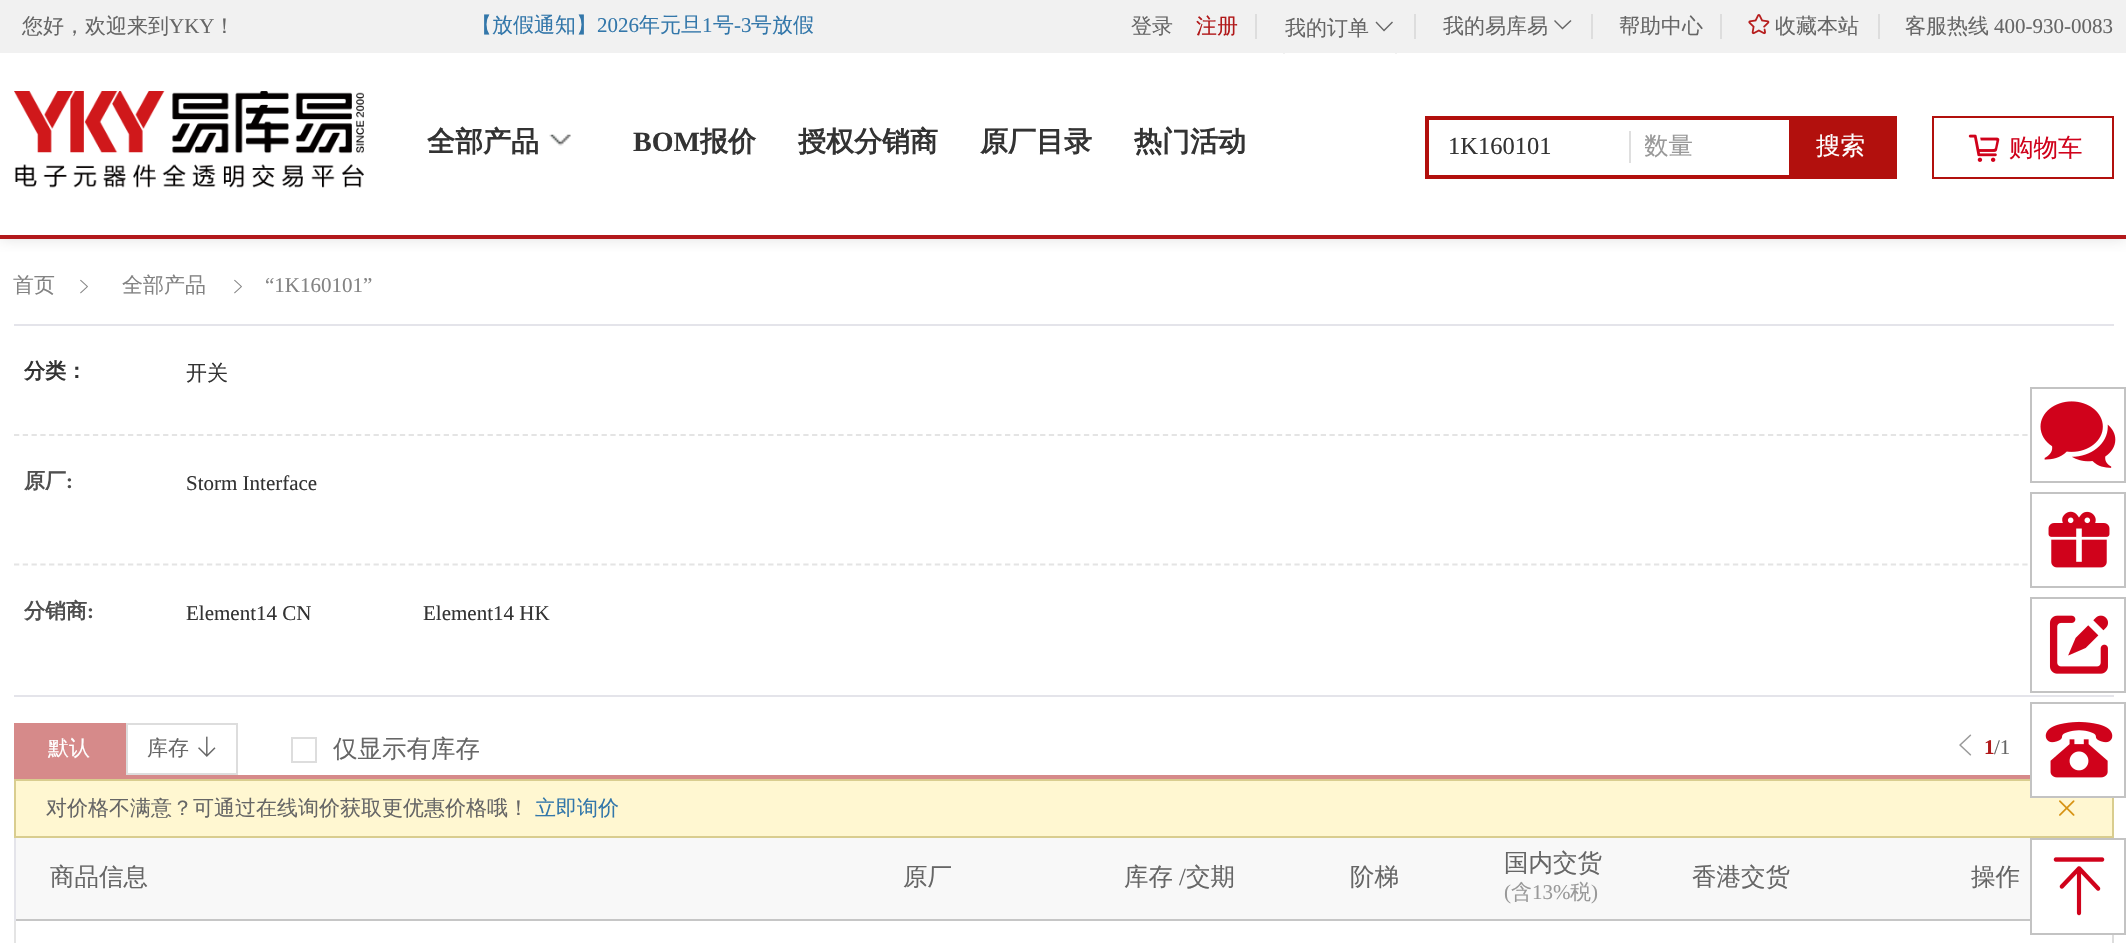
#include "include/core/SkBlurTypes.h"
#include "include/core/SkCanvas.h"
#include "include/core/SkData.h"
#include "include/core/SkFont.h"
#include "include/core/SkFontMgr.h"
#include "include/core/SkImage.h"
#include "include/core/SkMaskFilter.h"
#include "include/core/SkPaint.h"
#include "include/core/SkPathBuilder.h"
#include "include/core/SkTextBlob.h"
#include "include/effects/SkDashPathEffect.h"
#include "include/effects/SkGradientShader.h"
#include "include/utils/SkParsePath.h"

extern sk_sp<SkFontMgr> fontMgr;

static SkFont font(const char* family, int weight, float size, bool italic = false) {
    SkFontStyle style(weight, SkFontStyle::kNormal_Width,
        italic ? SkFontStyle::kItalic_Slant : SkFontStyle::kUpright_Slant);
    SkFont result(fontMgr->matchFamilyStyle(family, style), size);
    result.setSubpixel(true);
    return result;
}

static void drawLabel(SkCanvas* canvas, const char* s, float x, float y, const SkFont& font, SkColor color) {
    SkPaint ink(SkColor4f::FromColor(color));
    ink.setAntiAlias(true);
    canvas->drawString(s, x, y, font, ink);
}

static void fillRect(SkCanvas* canvas, float x, float y, float w, float h, SkColor color) {
    SkPaint ink(SkColor4f::FromColor(color));
    ink.setAntiAlias(true);
    canvas->drawRect(SkRect::MakeXYWH(x, y, w, h), ink);
}

static void drawPhoto(SkCanvas* canvas, const char* path, float x, float y, float w, float h) {
    auto image = SkImages::DeferredFromEncodedData(SkData::MakeFromFileName(path));
    canvas->drawImageRect(image, SkRect::MakeXYWH(x, y, w, h), SkSamplingOptions());
}

static SkPath parsePath(const char* data, bool evenOdd = false) {
    SkPath result = *SkParsePath::FromSVGString(data);
    if (evenOdd) result.setFillType(SkPathFillType::kEvenOdd);
    return result;
}

void draw(SkCanvas* canvas) {
    SkPaint paint;
    paint.setAntiAlias(true);
    canvas->clear(0xFFFFFFFF);
    canvas->save();
    canvas->clipRect(SkRect::MakeXYWH(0, 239, 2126, 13));
    paint.setColor(0xFFDDDDDD);
    paint.setMaskFilter(SkMaskFilter::MakeBlur(kNormal_SkBlurStyle, 7));
    canvas->drawRect(SkRect::MakeXYWH(0, 0, 2126, 238), paint);
    paint.setMaskFilter(nullptr);
    canvas->restore();
    fillRect(canvas, 0, 235, 2126, 4, 0xFFB2191B);
    fillRect(canvas, 0, 0, 2126, 53, 0xFFF1F1F1);
    SkFont font1 = font("WenQuanYi Zen Hei", 500, 21);
    drawLabel(canvas, "您好，欢迎来到", 22, 33, font1, 0xFF666666);
    SkFont font2 = font("Liberation Serif", 400, 21);
    drawLabel(canvas, "YKY", 169, 33, font2, 0xFF666666);
    drawLabel(canvas, "！", 214, 33, font1, 0xFF666666);
    drawLabel(canvas, "【放假通知】", 471, 32, font1, 0xFF3377AA);
    drawLabel(canvas, "2026", 597, 32, font2, 0xFF3377AA);
    drawLabel(canvas, "年元旦", 639, 32, font1, 0xFF3377AA);
    drawLabel(canvas, "1", 702, 32, font2, 0xFF3377AA);
    drawLabel(canvas, "号", 713, 32, font1, 0xFF3377AA);
    drawLabel(canvas, "-3", 734, 32, font2, 0xFF3377AA);
    drawLabel(canvas, "号放假", 751, 32, font1, 0xFF3377AA);
    drawLabel(canvas, "登录", 1131, 33, font1, 0xFF666666);
    drawLabel(canvas, "注册", 1196, 33, font1, 0xFFB1191A);
    fillRect(canvas, 1255, 14, 2, 25, 0xFFDDDDDD);
    fillRect(canvas, 1395, 53, 2, 1, 0xFFF1F1F1);
    fillRect(canvas, 1283, 53, 2, 1, 0xFFF1F1F1);
    drawLabel(canvas, "我的订单", 1285, 35, font1, 0xFF666666);
    paint.setColor(0xFF666666);
    canvas->drawPath(parsePath("M1376.5 21.5L1375.5 22.5L1384 31.5L1393 22.5L1392 21.5L1384 29.5Z"), paint);
    fillRect(canvas, 1414, 14, 2, 25, 0xFFDDDDDD);
    drawLabel(canvas, "我的易库易", 1443, 33, font1, 0xFF666666);
    canvas->drawPath(parsePath("M1555 20L1554 21L1562.5 29.5L1571.5 21L1570.5 20L1562.5 27.5Z"), paint);
    fillRect(canvas, 1591, 14, 2, 25, 0xFFDDDDDD);
    drawLabel(canvas, "帮助中心", 1619, 33, font1, 0xFF666666);
    fillRect(canvas, 1720, 14, 2, 25, 0xFFDDDDDD);
    drawPhoto(canvas, "assets/img1.png", 1748, 14, 22, 21);
    drawLabel(canvas, "收藏本站", 1775, 33, font1, 0xFF666666);
    fillRect(canvas, 1878, 14, 2, 25, 0xFFDDDDDD);
    drawLabel(canvas, "客服热线", 1905, 33, font1, 0xFF666666);
    drawLabel(canvas, "400-930-0083", 1994, 33, font2, 0xFF666666);
    drawPhoto(canvas, "assets/img2.png", 14, 91, 350, 97);
    SkFont font3 = font("WenQuanYi Zen Hei", 700, 28);
    drawLabel(canvas, "全部产品", 427, 151, font3, 0xFF333333);
    drawPhoto(canvas, "assets/img3.png", 549, 134, 22, 12);
    SkFont font4 = font("Liberation Serif", 700, 28);
    drawLabel(canvas, "BOM", 633, 151, font4, 0xFF333333);
    drawLabel(canvas, "报价", 700, 151, font3, 0xFF333333);
    drawLabel(canvas, "授权分销商", 798, 151, font3, 0xFF333333);
    drawLabel(canvas, "原厂目录", 980, 151, font3, 0xFF333333);
    drawLabel(canvas, "热门活动", 1134, 151, font3, 0xFF333333);
    paint.setStroke(true);
    paint.setStrokeWidth(4);
    paint.setColor(0xFFB2100D);
    canvas->drawRect(SkRect::MakeXYWH(1427, 118, 468, 59), paint);
    SkFont font5 = font("Liberation Serif", 400, 24.5f);
    drawLabel(canvas, "1K160101", 1448, 154, font5, 0xFF333333);
    fillRect(canvas, 1629, 131, 2, 32, 0xFFDFDFDF);
    canvas->save();
    canvas->clipRect(SkRect::MakeXYWH(1645, 131, 144, 32));
    SkFont font6 = font("WenQuanYi Zen Hei", 500, 24.5f);
    drawLabel(canvas, "数量", 1644, 154, font6, 0xFF999999);
    canvas->restore();
    fillRect(canvas, 1789, 120, 104, 55, 0xFFB2100D);
    drawLabel(canvas, "搜索", 1816, 154, font6, 0xFFFFFFFF);
    paint.setStrokeWidth(2);
    canvas->drawRect(SkRect::MakeXYWH(1933, 117, 180, 61), paint);
    drawPhoto(canvas, "assets/img4.png", 1968, 134, 32, 28);
    drawLabel(canvas, "购物车", 2009, 156, font6, 0xFFD0021B);
    drawLabel(canvas, "首页", 13, 292, font1, 0xFF838383);
    drawPhoto(canvas, "assets/img5.png", 80, 279, 8, 15);
    drawLabel(canvas, "全部产品", 122, 292, font1, 0xFF838383);
    drawPhoto(canvas, "assets/img5.png", 234, 279, 8, 15);
    drawLabel(canvas, "“1K160101”", 265, 292, font2, 0xFF838383);
    fillRect(canvas, 14, 324, 2100, 2, 0xFFE4E4EA);
    fillRect(canvas, 14, 695, 2100, 2, 0xFFE4E4EA);
    SkFont font7 = font("WenQuanYi Zen Hei", 700, 21);
    drawLabel(canvas, "分类：", 24, 378, font7, 0xFF333333);
    drawLabel(canvas, "开关", 186, 380, font1, 0xFF333333);
    paint.setStrokeWidth(1.8f);
    paint.setColor(0xFFE4E4E4);
    paint.setPathEffect(SkDashPathEffect::Make({{5.25f, 3.52f}}, 0));
    canvas->drawPath(parsePath("M14 435H2114"), paint);
    paint.setPathEffect(nullptr);
    drawLabel(canvas, "原厂", 24, 488, font7, 0xFF4F4F4F);
    SkFont font8 = font("Liberation Serif", 700, 21);
    drawLabel(canvas, ":", 66, 488, font8, 0xFF4F4F4F);
    drawLabel(canvas, "Storm Interface", 186, 490, font2, 0xFF333333);
    paint.setPathEffect(SkDashPathEffect::Make({{5.25f, 3.52f}}, 0));
    canvas->drawPath(parsePath("M14 564.5H2114"), paint);
    paint.setPathEffect(nullptr);
    drawLabel(canvas, "分销商", 24, 618, font7, 0xFF4F4F4F);
    drawLabel(canvas, ":", 87, 618, font8, 0xFF4F4F4F);
    drawLabel(canvas, "Element14 CN", 186, 620, font2, 0xFF333333);
    drawLabel(canvas, "Element14 HK", 423, 620, font2, 0xFF333333);
    fillRect(canvas, 2032, 434, 82, 2, 0xFFFFFFFF);
    paint.setStrokeWidth(2);
    paint.setColor(0xFFC3C3C3);
    canvas->drawRect(SkRect::MakeXYWH(2031, 388, 94, 94), paint);
    drawPhoto(canvas, "assets/img6.png", 2040, 401, 76, 67);
    fillRect(canvas, 2032, 563, 82, 3, 0xFFFFFFFF);
    canvas->drawRect(SkRect::MakeXYWH(2031, 493, 94, 94), paint);
    drawPhoto(canvas, "assets/img7.png", 2048, 511, 62, 57);
    canvas->drawRect(SkRect::MakeXYWH(2031, 598, 94, 94), paint);
    drawPhoto(canvas, "assets/img8.png", 2049, 615, 59, 59);
    paint.setStroke(false);
    paint.setColor(0xFFFFF7D1);
    canvas->drawRect(SkRect::MakeXYWH(15, 780, 2098, 57), paint);
    paint.setStroke(true);
    paint.setColor(0xFFD9CD8F);
    canvas->drawRect(SkRect::MakeXYWH(15, 780, 2098, 57), paint);
    fillRect(canvas, 2032, 779, 82, 17, 0xFFFFFFFF);
    paint.setColor(0xFFC3C3C3);
    canvas->drawRect(SkRect::MakeXYWH(2031, 703, 94, 94), paint);
    drawPhoto(canvas, "assets/img9.png", 2045, 721, 68, 57);
    canvas->drawRect(SkRect::MakeXYWH(2031, 839, 94, 95), paint);
    drawPhoto(canvas, "assets/img10.png", 2053, 857, 52, 59);
    fillRect(canvas, 14, 775, 2016, 4, 0xFFD68A8A);
    fillRect(canvas, 14, 723, 112, 52, 0xFFD68A8A);
    drawLabel(canvas, "默认", 48, 755, font1, 0xFFFFFFFF);
    paint.setColor(0xFFDDDDDD);
    canvas->drawRect(SkRect::MakeXYWH(127, 724, 110, 50), paint);
    drawLabel(canvas, "库存", 147, 755, font1, 0xFF666666);
    drawPhoto(canvas, "assets/img11.png", 198, 736, 18, 21);
    canvas->drawRect(SkRect::MakeXYWH(292, 738, 24, 24), paint);
    drawLabel(canvas, "仅显示有库存", 333, 757, font6, 0xFF666666);
    drawPhoto(canvas, "assets/img12.png", 1959, 734, 13, 22);
    drawLabel(canvas, "1", 1984, 754, font8, 0xFFB1191A);
    drawLabel(canvas, "/1", 1994, 754, font2, 0xFF666666);
    drawLabel(canvas, "对价格不满意？可通过在线询价获取更优惠价格哦！", 46, 815, font1, 0xFF666666);
    drawLabel(canvas, "立即询价", 535, 815, font1, 0xFF3377AA);
    drawPhoto(canvas, "assets/img13.png", 2059, 800, 16, 16);
    fillRect(canvas, 16, 838, 2014, 81, 0xFFF8F8F8);
    fillRect(canvas, 14, 919, 2016, 2, 0xFFC6C6C6);
    fillRect(canvas, 14, 838, 2, 83, 0xFFE4E4EA);
    drawLabel(canvas, "商品信息", 50, 885, font6, 0xFF666666);
    drawLabel(canvas, "原厂", 903, 885, font6, 0xFF666666);
    drawLabel(canvas, "库存", 1124, 885, font6, 0xFF666666);
    drawLabel(canvas, "/", 1179, 885, font5, 0xFF666666);
    drawLabel(canvas, "交期", 1186, 885, font6, 0xFF666666);
    drawLabel(canvas, "阶梯", 1350, 885, font6, 0xFF666666);
    drawLabel(canvas, "国内交货", 1504, 871, font6, 0xFF666666);
    drawLabel(canvas, "(", 1504, 899, font2, 0xFF999999);
    drawLabel(canvas, "含", 1511, 899, font1, 0xFF999999);
    drawLabel(canvas, "13%", 1532, 899, font2, 0xFF999999);
    drawLabel(canvas, "税", 1570, 899, font1, 0xFF999999);
    drawLabel(canvas, ")", 1591, 899, font2, 0xFF999999);
    drawLabel(canvas, "香港交货", 1692, 885, font6, 0xFF666666);
    drawLabel(canvas, "操作", 1971, 885, font6, 0xFF666666);
    fillRect(canvas, 14, 921, 2, 22, 0xFFE4E4E4);
    fillRect(canvas, 2112, 935, 2, 8, 0xFFDDDDDD);
}
